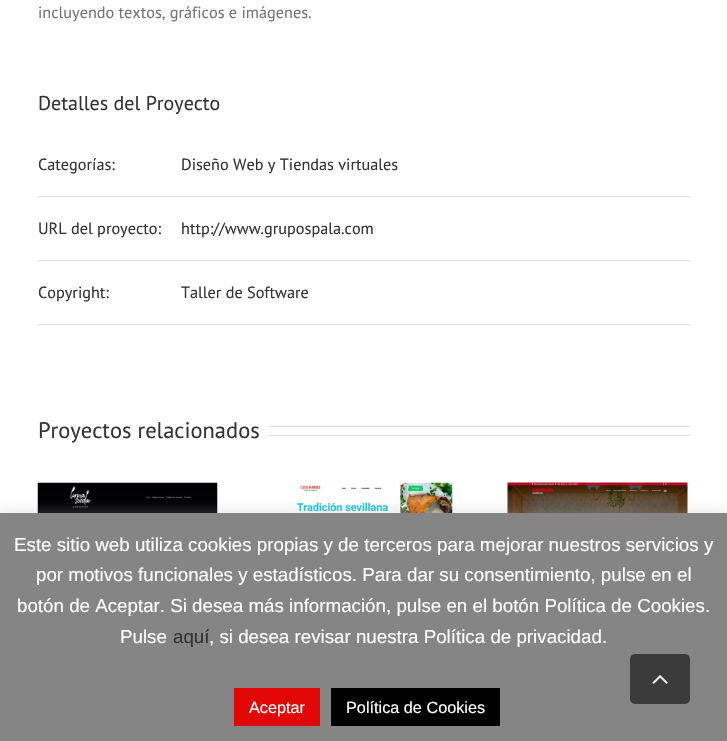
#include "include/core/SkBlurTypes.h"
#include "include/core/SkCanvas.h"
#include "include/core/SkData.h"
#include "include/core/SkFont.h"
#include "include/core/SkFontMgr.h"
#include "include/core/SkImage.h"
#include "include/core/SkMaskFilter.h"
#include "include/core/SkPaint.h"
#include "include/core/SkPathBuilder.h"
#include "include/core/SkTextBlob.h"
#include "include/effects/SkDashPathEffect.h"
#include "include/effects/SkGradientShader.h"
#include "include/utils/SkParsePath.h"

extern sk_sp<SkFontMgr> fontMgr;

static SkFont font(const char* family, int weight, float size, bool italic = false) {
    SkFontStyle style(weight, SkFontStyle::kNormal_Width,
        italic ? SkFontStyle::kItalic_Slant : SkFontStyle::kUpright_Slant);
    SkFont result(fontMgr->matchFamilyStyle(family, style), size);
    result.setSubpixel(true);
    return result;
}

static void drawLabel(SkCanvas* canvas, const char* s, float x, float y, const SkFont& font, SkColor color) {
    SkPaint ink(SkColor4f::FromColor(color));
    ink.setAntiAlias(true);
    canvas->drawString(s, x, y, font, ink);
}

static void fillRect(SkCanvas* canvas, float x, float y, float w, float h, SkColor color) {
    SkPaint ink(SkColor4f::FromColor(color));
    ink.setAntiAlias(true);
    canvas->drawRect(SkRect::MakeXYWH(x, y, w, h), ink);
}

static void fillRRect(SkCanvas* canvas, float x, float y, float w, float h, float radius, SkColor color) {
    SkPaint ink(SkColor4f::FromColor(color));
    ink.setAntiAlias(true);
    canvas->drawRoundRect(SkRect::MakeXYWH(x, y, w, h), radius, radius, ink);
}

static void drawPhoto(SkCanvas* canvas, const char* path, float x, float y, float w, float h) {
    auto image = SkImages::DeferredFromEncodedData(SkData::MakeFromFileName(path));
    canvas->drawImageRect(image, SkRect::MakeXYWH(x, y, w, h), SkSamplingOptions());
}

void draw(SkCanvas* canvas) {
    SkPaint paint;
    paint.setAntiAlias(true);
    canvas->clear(0xFFFFFFFF);
    SkFont font1 = font("PT Sans", 400, 16.25f);
    drawLabel(canvas, "incluyendo textos, gráficos e imágenes.", 38, 18, font1, 0xFF747474);
    SkFont font2 = font("PT Sans", 400, 20);
    drawLabel(canvas, "Detalles del Proyecto", 38, 110, font2, 0xFF333333);
    fillRect(canvas, 38, 196, 652, 1, 0xFFE0DEDE);
    drawLabel(canvas, "Categorías:", 38, 170, font1, 0xFF333333);
    drawLabel(canvas, "Diseño Web y Tiendas virtuales", 181, 170, font1, 0xFF333333);
    fillRect(canvas, 38, 260, 652, 1, 0xFFE0DEDE);
    drawLabel(canvas, "URL del proyecto:", 38, 234, font1, 0xFF333333);
    drawLabel(canvas, "http://www.grupospala.com", 181, 234, font1, 0xFF333333);
    fillRect(canvas, 38, 324, 652, 1, 0xFFE0DEDE);
    drawLabel(canvas, "Copyright:", 38, 298, font1, 0xFF333333);
    drawLabel(canvas, "Taller de Software", 181, 298, font1, 0xFF333333);
    SkFont font3 = font("PT Sans", 400, 22.5f);
    drawLabel(canvas, "Proyectos relacionados", 38, 438, font3, 0xFF333333);
    fillRect(canvas, 269, 426, 421, 1, 0xFFE0DEDE);
    fillRect(canvas, 269, 435, 421, 1, 0xFFE0DEDE);
    drawPhoto(canvas, "assets/img1.png", 37, 482, 181, 31);
    drawPhoto(canvas, "assets/img2.png", 272, 482, 181, 31);
    drawPhoto(canvas, "assets/img3.png", 507, 482, 181, 31);
    paint.setColor(0x4DACABAB);
    paint.setMaskFilter(SkMaskFilter::MakeBlur(kNormal_SkBlurStyle, 6));
    canvas->drawRect(SkRect::MakeXYWH(0, 511, 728, 229), paint);
    paint.setMaskFilter(nullptr);
    fillRect(canvas, 0, 513, 727, 228, 0xFF858585);
    SkFont font4 = font("Liberation Sans", 400, 18.75f);
    drawLabel(canvas, "Este sitio web utiliza cookies propias y de terceros para mejorar nuestros servicios y", 14, 551, font4, 0xFFFFFFFF);
    drawLabel(canvas, "por motivos funcionales y estadísticos. Para dar su consentimiento, pulse en el", 36, 581, font4, 0xFFFFFFFF);
    drawLabel(canvas, "botón de Aceptar. Si desea más información, pulse en el botón Política de Cookies.", 17, 612, font4, 0xFFFFFFFF);
    drawLabel(canvas, "Pulse", 120, 643, font4, 0xFFFFFFFF);
    drawLabel(canvas, "aquí", 173, 643, font4, 0xFF333333);
    drawLabel(canvas, ", si desea revisar nuestra Política de privacidad.", 209, 643, font4, 0xFFFFFFFF);
    fillRect(canvas, 234, 688, 86, 38, 0xFFE10707);
    SkFont font5 = font("Liberation Sans", 400, 16.25f);
    drawLabel(canvas, "Aceptar", 249, 713, font5, 0xFFFFFFFF);
    fillRect(canvas, 331, 688, 169, 38, 0xFF000000);
    drawLabel(canvas, "Política de Cookies", 346, 713, font5, 0xFFFFFFFF);
    fillRRect(canvas, 630, 654, 60, 50, 5, 0xFF3B3B3B);
    drawPhoto(canvas, "assets/img4.png", 652, 675, 16, 9);
}
